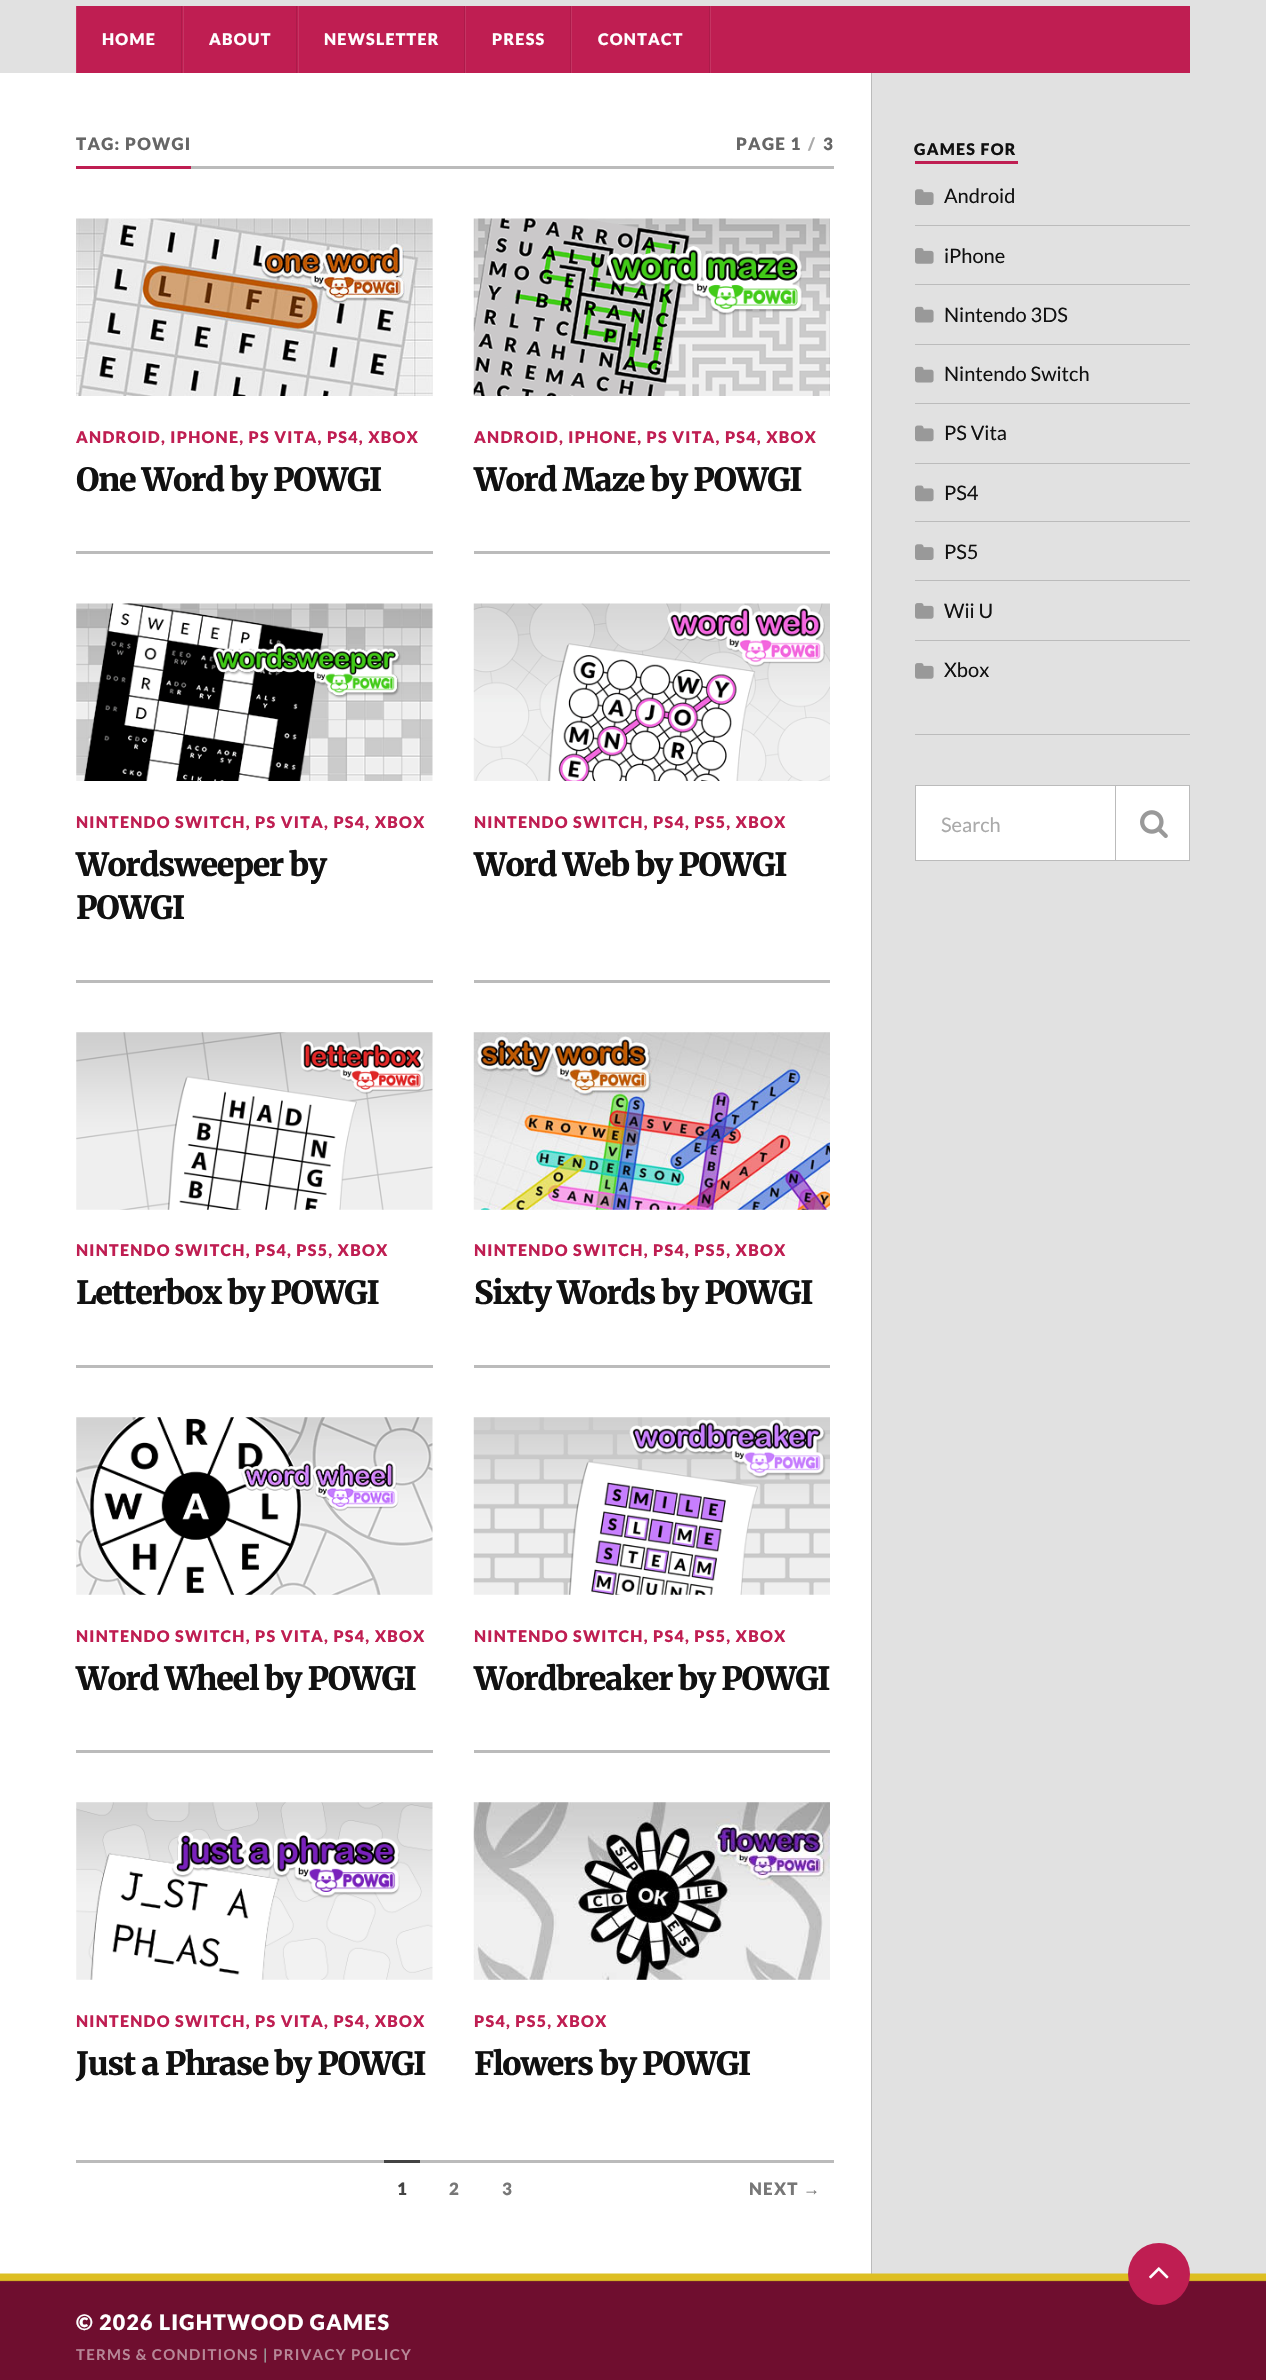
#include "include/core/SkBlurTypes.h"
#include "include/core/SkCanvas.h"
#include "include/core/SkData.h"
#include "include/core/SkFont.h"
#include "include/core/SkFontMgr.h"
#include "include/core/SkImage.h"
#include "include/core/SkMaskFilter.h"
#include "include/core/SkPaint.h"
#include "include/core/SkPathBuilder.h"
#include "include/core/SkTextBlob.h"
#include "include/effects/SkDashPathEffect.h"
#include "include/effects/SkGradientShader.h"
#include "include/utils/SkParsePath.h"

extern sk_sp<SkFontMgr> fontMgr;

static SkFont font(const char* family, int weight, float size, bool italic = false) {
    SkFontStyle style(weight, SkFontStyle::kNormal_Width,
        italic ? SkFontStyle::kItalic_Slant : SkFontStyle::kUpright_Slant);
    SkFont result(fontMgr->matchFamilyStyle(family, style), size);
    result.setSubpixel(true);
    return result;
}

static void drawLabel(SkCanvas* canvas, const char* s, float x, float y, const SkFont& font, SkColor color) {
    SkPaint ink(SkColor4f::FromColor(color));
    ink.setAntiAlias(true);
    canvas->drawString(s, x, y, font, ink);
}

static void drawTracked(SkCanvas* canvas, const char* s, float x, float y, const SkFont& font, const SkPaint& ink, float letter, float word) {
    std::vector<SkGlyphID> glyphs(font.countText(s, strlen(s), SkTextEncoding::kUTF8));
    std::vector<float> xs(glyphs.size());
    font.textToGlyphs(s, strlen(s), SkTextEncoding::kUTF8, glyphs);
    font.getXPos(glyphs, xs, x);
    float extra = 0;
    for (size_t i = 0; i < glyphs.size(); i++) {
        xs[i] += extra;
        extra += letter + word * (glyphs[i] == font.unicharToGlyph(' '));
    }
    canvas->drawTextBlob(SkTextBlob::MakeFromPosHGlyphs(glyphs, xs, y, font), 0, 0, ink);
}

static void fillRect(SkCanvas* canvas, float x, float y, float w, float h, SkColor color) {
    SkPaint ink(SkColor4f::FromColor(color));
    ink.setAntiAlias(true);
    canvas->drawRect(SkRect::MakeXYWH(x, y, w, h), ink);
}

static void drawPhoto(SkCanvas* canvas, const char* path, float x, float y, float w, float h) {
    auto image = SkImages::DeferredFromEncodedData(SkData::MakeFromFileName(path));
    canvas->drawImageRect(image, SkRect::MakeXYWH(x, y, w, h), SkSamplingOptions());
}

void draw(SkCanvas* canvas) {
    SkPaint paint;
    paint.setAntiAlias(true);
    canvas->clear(0xFFE1E1E1);
    fillRect(canvas, 77, 6, 1113, 67, 0xFFBF1E52);
    fillRect(canvas, 181, 6, 1, 67, 0xFFAC1B4A);
    fillRect(canvas, 76, 6, 1, 67, 0xFFC53563);
    SkFont font1 = font("Lato", 900, 16);
    paint.setColor(0xFFFFFFFF);
    drawTracked(canvas, "HOME", 102, 45, font1, paint, 1.25f, 0);
    fillRect(canvas, 296, 6, 1, 67, 0xFFAC1B4A);
    fillRect(canvas, 183, 6, 1, 67, 0xFFC53563);
    drawTracked(canvas, "ABOUT", 209, 45, font1, paint, 1.25f, 0);
    fillRect(canvas, 464, 6, 1, 67, 0xFFAC1B4A);
    fillRect(canvas, 298, 6, 1, 67, 0xFFC53563);
    drawTracked(canvas, "NEWSLETTER", 324, 45, font1, paint, 1.25f, 0);
    fillRect(canvas, 570, 6, 1, 67, 0xFFAC1B4A);
    fillRect(canvas, 465, 6, 1, 67, 0xFFC53563);
    drawTracked(canvas, "PRESS", 492, 45, font1, paint, 1.25f, 0);
    fillRect(canvas, 709, 6, 1, 67, 0xFFAC1B4A);
    fillRect(canvas, 571, 6, 1, 67, 0xFFC53563);
    drawTracked(canvas, "CONTACT", 598, 45, font1, paint, 1.25f, 0);
    fillRect(canvas, 710, 6, 1, 67, 0xFFC53563);
    fillRect(canvas, 0, 73, 871, 2201, 0xFFFFFFFF);
    fillRect(canvas, 191, 166, 643, 3, 0xFFBBBBBB);
    fillRect(canvas, 76, 166, 115, 3, 0xFFBF1E52);
    SkFont font2 = font("Lato", 900, 17);
    paint.setColor(0xFF666666);
    drawTracked(canvas, "TAG: POWGI", 76, 150, font2, paint, 1.25f, 0);
    drawTracked(canvas, "PAGE 1", 736, 150, font2, paint, 1.25f, 0);
    paint.setColor(0xFFAAAAAA);
    drawTracked(canvas, "/", 808, 150, font2, paint, 1.25f, 0);
    paint.setColor(0xFF666666);
    drawTracked(canvas, "3", 823, 150, font2, paint, 1.25f, 0);
    drawPhoto(canvas, "assets/img1.png", 76, 218, 357, 178);
    paint.setColor(0xFFBF1E52);
    drawTracked(canvas, "ANDROID, IPHONE, PS VITA, PS4, XBOX", 76, 443, font1, paint, 1.25f, 0);
    SkFont font3 = font("Merriweather", 900, 31.9f);
    paint.setColor(0xFF111111);
    drawTracked(canvas, "One Word by POWGI", 76, 491, font3, paint, -1.25f, 0);
    drawPhoto(canvas, "assets/img2.png", 473, 218, 357, 178);
    paint.setColor(0xFFBF1E52);
    drawTracked(canvas, "ANDROID, IPHONE, PS VITA, PS4, XBOX", 474, 443, font1, paint, 1.25f, 0);
    paint.setColor(0xFF111111);
    drawTracked(canvas, "Word Maze by POWGI", 474, 491, font3, paint, -1.25f, 0);
    fillRect(canvas, 76, 551, 357, 3, 0xFFBBBBBB);
    drawPhoto(canvas, "assets/img3.png", 76, 603, 357, 178);
    paint.setColor(0xFFBF1E52);
    drawTracked(canvas, "NINTENDO SWITCH, PS VITA, PS4, XBOX", 76, 828, font1, paint, 1.25f, 0);
    paint.setColor(0xFF111111);
    drawTracked(canvas, "Wordsweeper by", 76, 876, font3, paint, -1.25f, 0);
    drawTracked(canvas, "POWGI", 76, 919, font3, paint, -1.25f, 0);
    fillRect(canvas, 474, 551, 356, 3, 0xFFBBBBBB);
    drawPhoto(canvas, "assets/img4.png", 473, 603, 357, 178);
    paint.setColor(0xFFBF1E52);
    drawTracked(canvas, "NINTENDO SWITCH, PS4, PS5, XBOX", 474, 828, font1, paint, 1.25f, 0);
    paint.setColor(0xFF111111);
    drawTracked(canvas, "Word Web by POWGI", 474, 876, font3, paint, -1.25f, 0);
    fillRect(canvas, 76, 980, 357, 3, 0xFFBBBBBB);
    drawPhoto(canvas, "assets/img5.png", 76, 1032, 357, 178);
    paint.setColor(0xFFBF1E52);
    drawTracked(canvas, "NINTENDO SWITCH, PS4, PS5, XBOX", 76, 1256, font1, paint, 1.25f, 0);
    paint.setColor(0xFF111111);
    drawTracked(canvas, "Letterbox by POWGI", 76, 1304, font3, paint, -1.25f, 0);
    fillRect(canvas, 474, 980, 356, 3, 0xFFBBBBBB);
    drawPhoto(canvas, "assets/img6.png", 473, 1032, 357, 178);
    paint.setColor(0xFFBF1E52);
    drawTracked(canvas, "NINTENDO SWITCH, PS4, PS5, XBOX", 474, 1256, font1, paint, 1.25f, 0);
    paint.setColor(0xFF111111);
    drawTracked(canvas, "Sixty Words by POWGI", 474, 1304, font3, paint, -1.25f, 0);
    fillRect(canvas, 76, 1365, 357, 3, 0xFFBBBBBB);
    drawPhoto(canvas, "assets/img7.png", 76, 1417, 357, 178);
    paint.setColor(0xFFBF1E52);
    drawTracked(canvas, "NINTENDO SWITCH, PS VITA, PS4, XBOX", 76, 1642, font1, paint, 1.25f, 0);
    paint.setColor(0xFF111111);
    drawTracked(canvas, "Word Wheel by POWGI", 76, 1690, font3, paint, -1.25f, 0);
    fillRect(canvas, 474, 1365, 356, 3, 0xFFBBBBBB);
    drawPhoto(canvas, "assets/img8.png", 473, 1417, 357, 178);
    paint.setColor(0xFFBF1E52);
    drawTracked(canvas, "NINTENDO SWITCH, PS4, PS5, XBOX", 474, 1642, font1, paint, 1.25f, 0);
    paint.setColor(0xFF111111);
    drawTracked(canvas, "Wordbreaker by POWGI", 474, 1690, font3, paint, -1.25f, 0);
    fillRect(canvas, 76, 1750, 357, 3, 0xFFBBBBBB);
    drawPhoto(canvas, "assets/img9.png", 76, 1802, 357, 178);
    paint.setColor(0xFFBF1E52);
    drawTracked(canvas, "NINTENDO SWITCH, PS VITA, PS4, XBOX", 76, 2027, font1, paint, 1.25f, 0);
    paint.setColor(0xFF111111);
    drawTracked(canvas, "Just a Phrase by POWGI", 76, 2075, font3, paint, -1.25f, 0);
    fillRect(canvas, 474, 1750, 356, 3, 0xFFBBBBBB);
    drawPhoto(canvas, "assets/img10.png", 473, 1802, 357, 178);
    paint.setColor(0xFFBF1E52);
    drawTracked(canvas, "PS4, PS5, XBOX", 474, 2027, font1, paint, 1.25f, 0);
    paint.setColor(0xFF111111);
    drawTracked(canvas, "Flowers by POWGI", 474, 2075, font3, paint, -1.25f, 0);
    fillRect(canvas, 76, 2160, 758, 3, 0xFFBBBBBB);
    fillRect(canvas, 384, 2160, 36, 3, 0xFF444444);
    paint.setColor(0xFF444444);
    drawTracked(canvas, "1", 397, 2195, font2, paint, 1.25f, 0);
    paint.setColor(0xFF777777);
    drawTracked(canvas, "2", 449, 2195, font2, paint, 1.25f, 0);
    drawTracked(canvas, "3", 502, 2195, font2, paint, 1.25f, 0);
    drawTracked(canvas, "NEXT", 749, 2195, font2, paint, 1.25f, 0);
    SkFont font4 = font("Liberation Sans", 700, 17);
    drawTracked(canvas, "→", 803, 2195, font4, paint, 1.25f, 0);
    fillRect(canvas, 871, 73, 1, 2201, 0xFFBBBBBB);
    fillRect(canvas, 915, 161, 103, 3, 0xFFBF1E52);
    paint.setColor(0xFF111111);
    drawTracked(canvas, "GAMES FOR", 914, 155, font1, paint, 1.25f, 0);
    fillRect(canvas, 915, 225, 275, 1, 0xFFBBBBBB);
    drawPhoto(canvas, "assets/img11.png", 915, 189, 19, 16);
    SkFont font5 = font("Lato", 400, 20);
    drawLabel(canvas, "Android", 944, 203, font5, 0xFF111111);
    fillRect(canvas, 915, 284, 275, 1, 0xFFBBBBBB);
    drawPhoto(canvas, "assets/img12.png", 915, 248, 19, 16);
    drawLabel(canvas, "iPhone", 944, 263, font5, 0xFF111111);
    fillRect(canvas, 915, 344, 275, 1, 0xFFBBBBBB);
    drawPhoto(canvas, "assets/img13.png", 915, 306, 19, 17);
    drawLabel(canvas, "Nintendo 3DS", 944, 322, font5, 0xFF111111);
    fillRect(canvas, 915, 403, 275, 1, 0xFFBBBBBB);
    drawPhoto(canvas, "assets/img13.png", 915, 366, 19, 17);
    drawLabel(canvas, "Nintendo Switch", 944, 381, font5, 0xFF111111);
    fillRect(canvas, 915, 463, 275, 1, 0xFFBBBBBB);
    drawPhoto(canvas, "assets/img14.png", 915, 425, 19, 17);
    drawLabel(canvas, "PS Vita", 944, 440, font5, 0xFF111111);
    fillRect(canvas, 915, 521, 275, 1, 0xFFBBBBBB);
    drawPhoto(canvas, "assets/img14.png", 915, 485, 19, 17);
    drawLabel(canvas, "PS4", 944, 500, font5, 0xFF111111);
    fillRect(canvas, 915, 580, 275, 1, 0xFFBBBBBB);
    drawPhoto(canvas, "assets/img11.png", 915, 544, 19, 16);
    drawLabel(canvas, "PS5", 944, 559, font5, 0xFF111111);
    fillRect(canvas, 915, 640, 275, 1, 0xFFBBBBBB);
    drawPhoto(canvas, "assets/img12.png", 915, 603, 19, 16);
    drawLabel(canvas, "Wii U", 944, 618, font5, 0xFF111111);
    drawPhoto(canvas, "assets/img12.png", 915, 663, 19, 16);
    drawLabel(canvas, "Xbox", 944, 677, font5, 0xFF111111);
    fillRect(canvas, 915, 734, 275, 1, 0xFFBBBBBB);
    paint.setColor(0xFFFFFFFF);
    canvas->drawRect(SkRect::MakeXYWH(915.5f, 785.5f, 274, 75), paint);
    paint.setStroke(true);
    paint.setStrokeWidth(1);
    paint.setColor(0xFFBBBBBB);
    canvas->drawRect(SkRect::MakeXYWH(915.5f, 785.5f, 274, 75), paint);
    drawLabel(canvas, "Search", 941, 832, font5, 0xFFAAAAAA);
    fillRect(canvas, 1115, 785, 1, 76, 0xFFBBBBBB);
    drawPhoto(canvas, "assets/img15.png", 1140, 810, 28, 28);
    fillRect(canvas, 0, 2286, 1266, 94, 0xFF6F0E2F);
    drawPhoto(canvas, "assets/img16.png", 0, 2273, 1266, 13);
    paint.setStroke(false);
    paint.setColor(0xFFBF1E52);
    canvas->drawCircle(1159, 2274, 31, paint);
    drawPhoto(canvas, "assets/img17.png", 1149, 2267, 20, 12);
    SkFont font6 = font("Lato", 900, 21.25f);
    paint.setColor(0xFFFFFFFF);
    drawTracked(canvas, "© 2026 LIGHTWOOD GAMES", 76, 2330, font6, paint, 1.25f, 0);
    SkFont font7 = font("Lato", 700, 15);
    paint.setColor(0xFFB78797);
    drawTracked(canvas, "TERMS & CONDITIONS", 76, 2360, font7, paint, 1.25f, 0);
    paint.setColor(0xFF999999);
    drawTracked(canvas, "|", 263, 2360, font7, paint, 1.25f, 0);
    paint.setColor(0xFFB78797);
    drawTracked(canvas, "PRIVACY POLICY", 273, 2360, font7, paint, 1.25f, 0);
}
